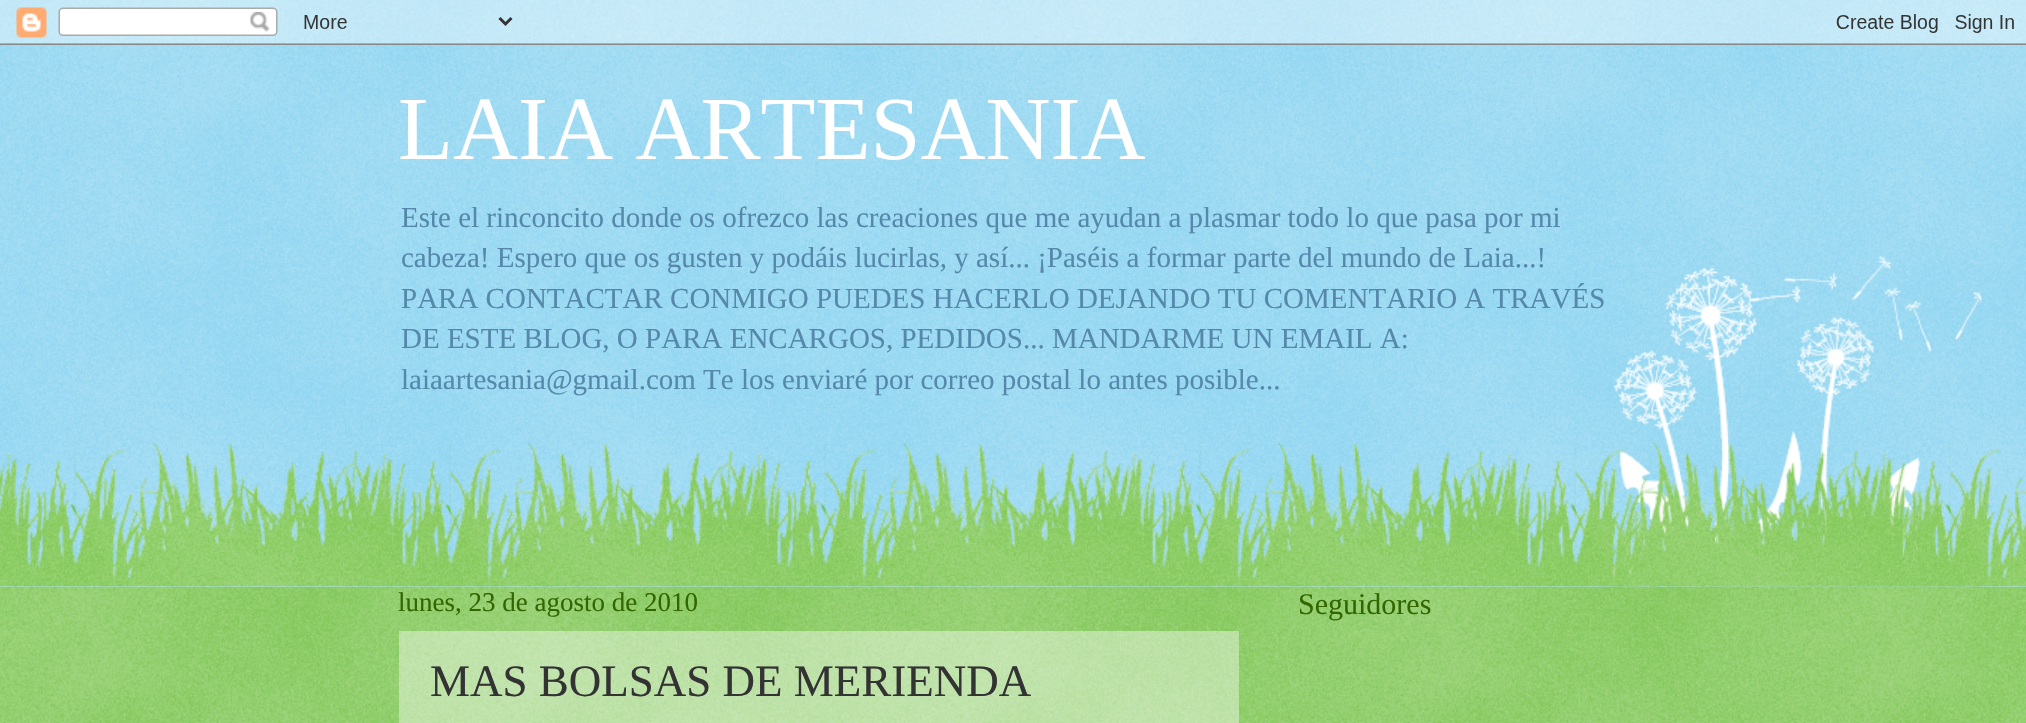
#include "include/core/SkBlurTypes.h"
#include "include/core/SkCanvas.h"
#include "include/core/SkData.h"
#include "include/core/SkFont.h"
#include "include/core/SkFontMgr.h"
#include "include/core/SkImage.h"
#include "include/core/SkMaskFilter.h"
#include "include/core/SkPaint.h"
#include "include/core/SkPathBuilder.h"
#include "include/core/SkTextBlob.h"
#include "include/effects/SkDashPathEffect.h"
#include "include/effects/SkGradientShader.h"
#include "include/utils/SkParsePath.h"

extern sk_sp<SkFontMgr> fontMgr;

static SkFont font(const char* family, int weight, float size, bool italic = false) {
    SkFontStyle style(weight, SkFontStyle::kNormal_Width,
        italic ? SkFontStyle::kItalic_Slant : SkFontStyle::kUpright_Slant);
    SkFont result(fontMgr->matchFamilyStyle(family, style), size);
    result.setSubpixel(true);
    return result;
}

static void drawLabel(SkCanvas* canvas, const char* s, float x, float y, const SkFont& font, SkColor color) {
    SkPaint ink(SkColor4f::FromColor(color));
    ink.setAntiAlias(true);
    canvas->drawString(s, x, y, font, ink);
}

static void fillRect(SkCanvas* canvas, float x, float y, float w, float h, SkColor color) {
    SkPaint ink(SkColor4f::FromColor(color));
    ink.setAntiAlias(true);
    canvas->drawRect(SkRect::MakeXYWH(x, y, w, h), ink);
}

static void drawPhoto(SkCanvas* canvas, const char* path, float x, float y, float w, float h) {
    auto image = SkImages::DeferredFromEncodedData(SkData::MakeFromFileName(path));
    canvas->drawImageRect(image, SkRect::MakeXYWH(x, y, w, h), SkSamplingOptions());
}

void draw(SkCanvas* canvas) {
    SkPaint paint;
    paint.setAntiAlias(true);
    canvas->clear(0xFF77CCEE);
    drawPhoto(canvas, "assets/img1.png", 0, 0, 2026, 587);
    drawPhoto(canvas, "assets/img2.png", 0, 0, 2026, 45);
    SkFont font1 = font("Liberation Serif", 400, 90);
    drawLabel(canvas, "LAIA ARTESANIA", 398, 159, font1, 0xFFFFFFFF);
    SkFont font2 = font("Liberation Serif", 400, 29);
    drawLabel(canvas, "Este el rinconcito donde os ofrezco las creaciones que me ayudan a plasmar todo lo que pasa por mi", 401, 227, font2, 0xFF5588AA);
    drawLabel(canvas, "cabeza! Espero que os gusten y podáis lucirlas, y así... ¡Paséis a formar parte del mundo de Laia...!", 401, 267, font2, 0xFF5588AA);
    drawLabel(canvas, "PARA CONTACTAR CONMIGO PUEDES HACERLO DEJANDO TU COMENTARIO A TRAVÉS", 401, 308, font2, 0xFF5588AA);
    drawLabel(canvas, "DE ESTE BLOG, O PARA ENCARGOS, PEDIDOS... MANDARME UN EMAIL A:", 401, 348, font2, 0xFF5588AA);
    drawLabel(canvas, "laiaartesania@gmail.com Te los enviaré por correo postal lo antes posible...", 401, 389, font2, 0xFF5588AA);
    fillRect(canvas, 0, 587, 2026, 136, 0xFF66BB33);
    drawPhoto(canvas, "assets/img3.png", 0, 586, 2026, 137);
    drawPhoto(canvas, "assets/img4.png", 1606, 256, 376, 331);
    drawPhoto(canvas, "assets/img5.png", 0, 442, 2026, 145);
    SkFont font3 = font("Liberation Serif", 400, 27);
    drawLabel(canvas, "lunes, 23 de agosto de 2010", 398, 611, font3, 0xFF336600);
    fillRect(canvas, 399, 631, 840, 92, 0x66FFFFFF);
    SkFont font4 = font("Liberation Serif", 400, 45);
    drawLabel(canvas, "MAS BOLSAS DE MERIENDA", 430, 696, font4, 0xFF333333);
    SkFont font5 = font("Liberation Serif", 400, 30);
    drawLabel(canvas, "Seguidores", 1298, 614, font5, 0xFF336600);
}
